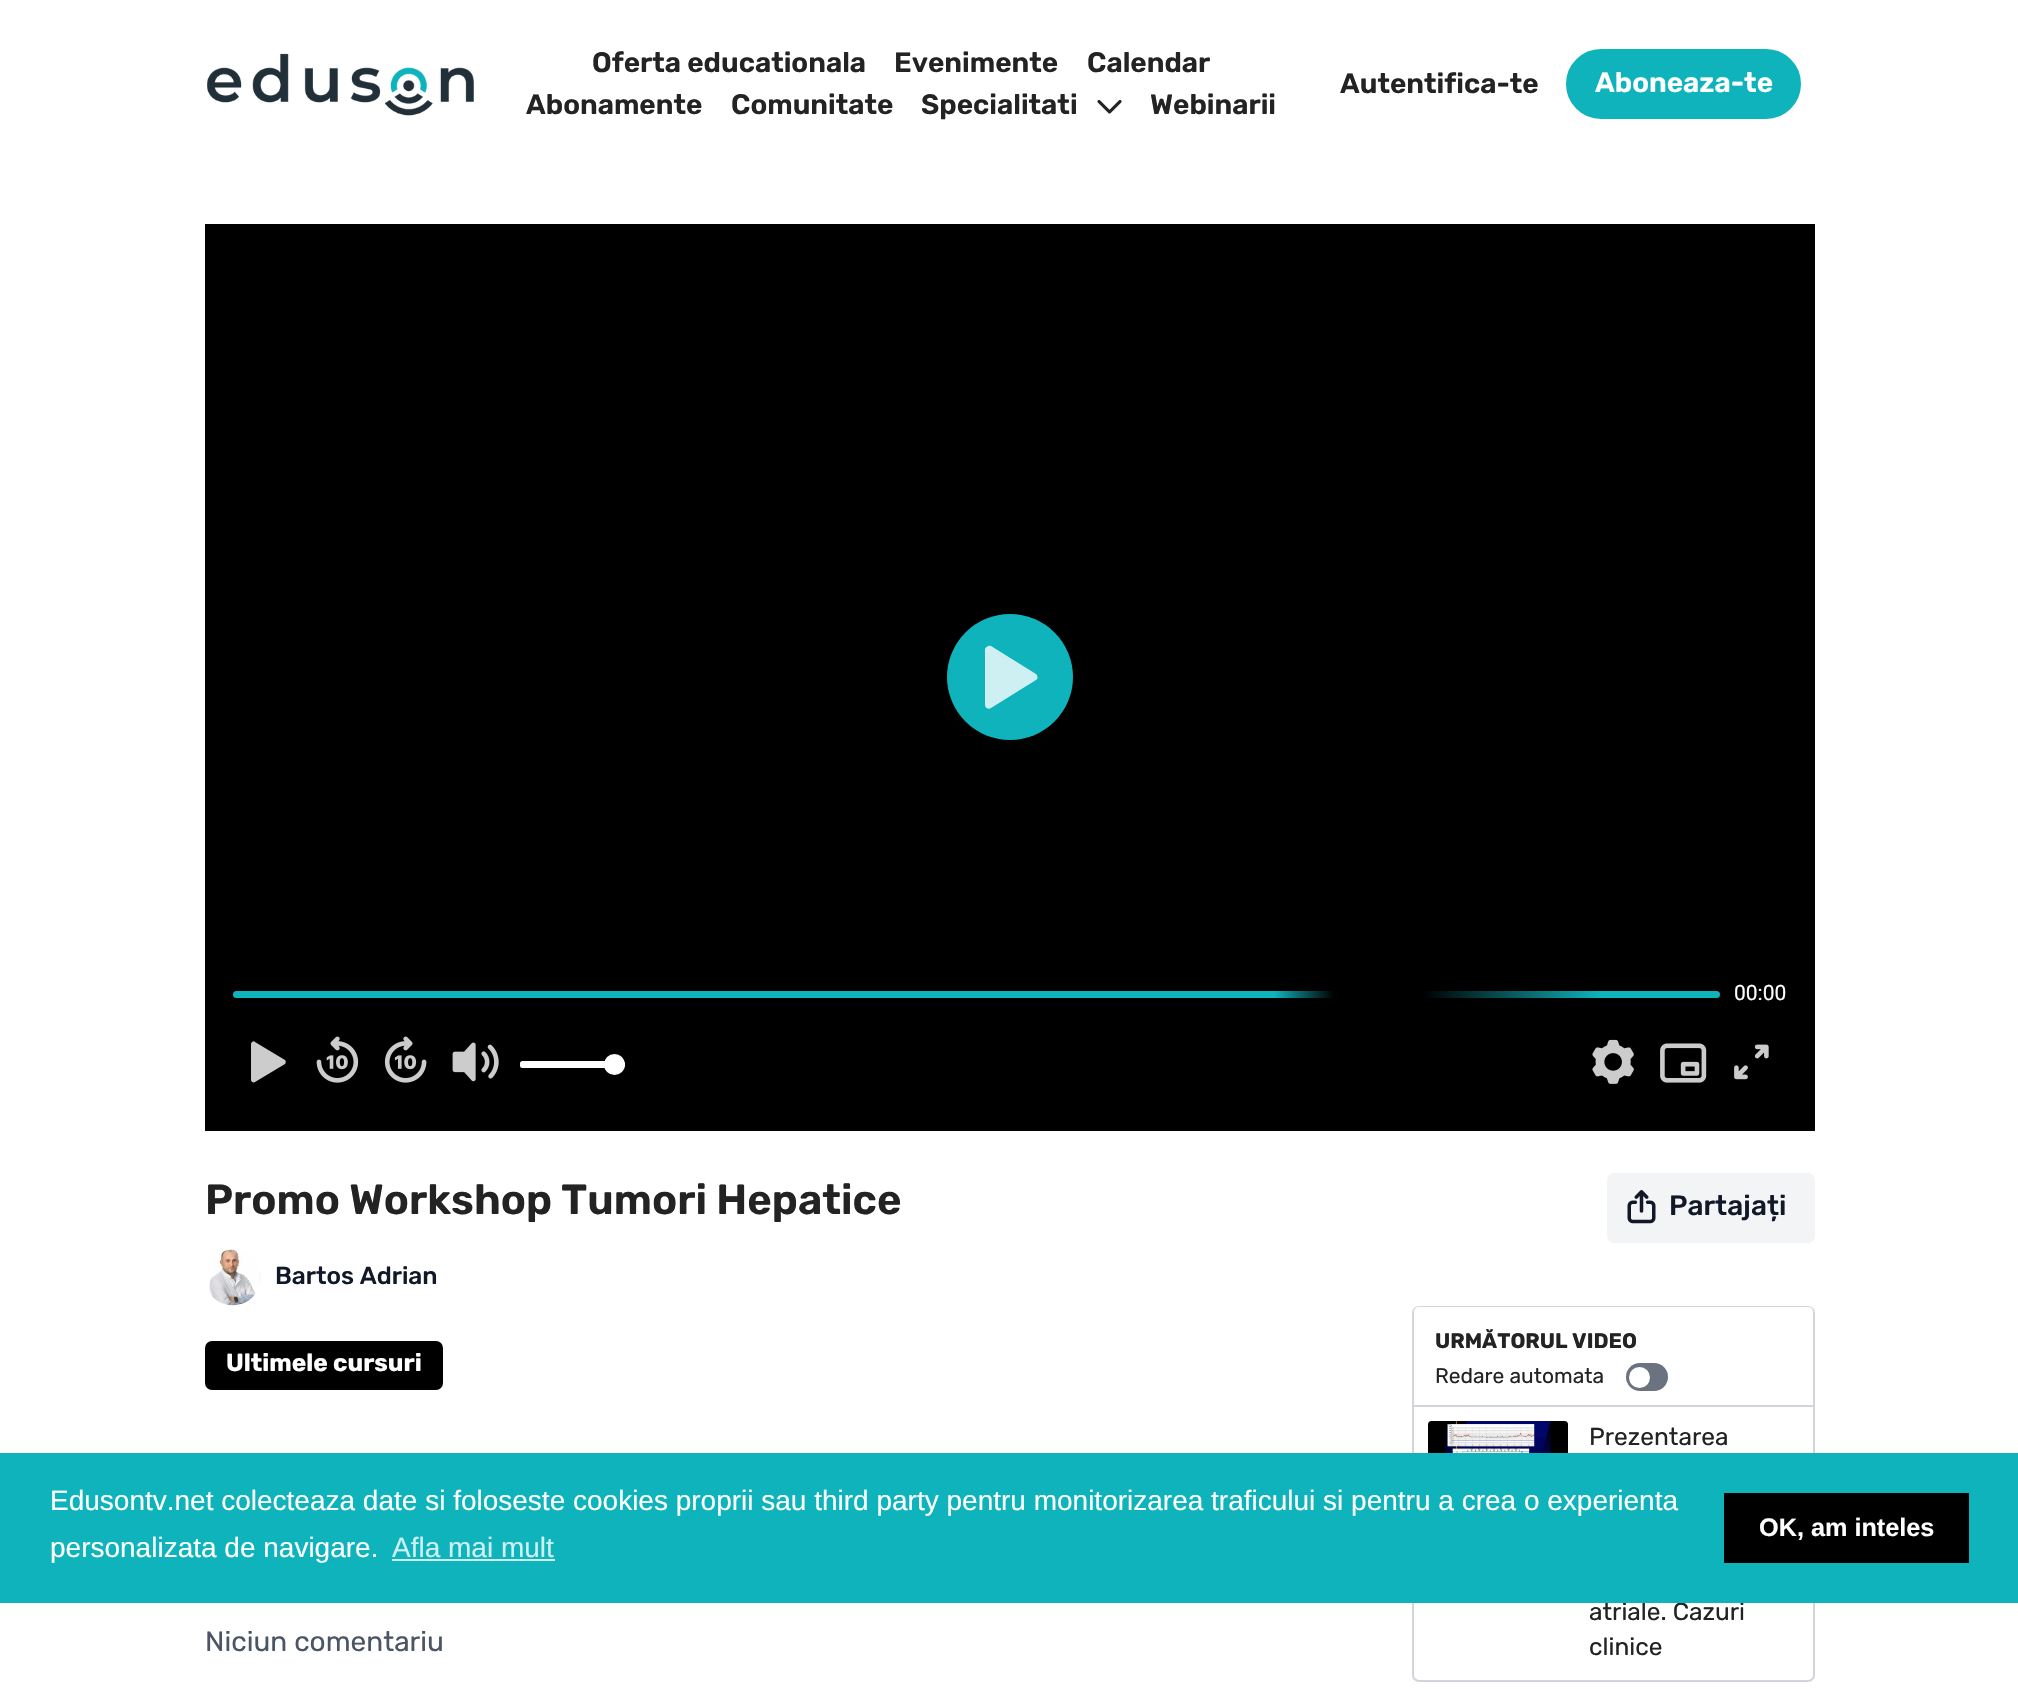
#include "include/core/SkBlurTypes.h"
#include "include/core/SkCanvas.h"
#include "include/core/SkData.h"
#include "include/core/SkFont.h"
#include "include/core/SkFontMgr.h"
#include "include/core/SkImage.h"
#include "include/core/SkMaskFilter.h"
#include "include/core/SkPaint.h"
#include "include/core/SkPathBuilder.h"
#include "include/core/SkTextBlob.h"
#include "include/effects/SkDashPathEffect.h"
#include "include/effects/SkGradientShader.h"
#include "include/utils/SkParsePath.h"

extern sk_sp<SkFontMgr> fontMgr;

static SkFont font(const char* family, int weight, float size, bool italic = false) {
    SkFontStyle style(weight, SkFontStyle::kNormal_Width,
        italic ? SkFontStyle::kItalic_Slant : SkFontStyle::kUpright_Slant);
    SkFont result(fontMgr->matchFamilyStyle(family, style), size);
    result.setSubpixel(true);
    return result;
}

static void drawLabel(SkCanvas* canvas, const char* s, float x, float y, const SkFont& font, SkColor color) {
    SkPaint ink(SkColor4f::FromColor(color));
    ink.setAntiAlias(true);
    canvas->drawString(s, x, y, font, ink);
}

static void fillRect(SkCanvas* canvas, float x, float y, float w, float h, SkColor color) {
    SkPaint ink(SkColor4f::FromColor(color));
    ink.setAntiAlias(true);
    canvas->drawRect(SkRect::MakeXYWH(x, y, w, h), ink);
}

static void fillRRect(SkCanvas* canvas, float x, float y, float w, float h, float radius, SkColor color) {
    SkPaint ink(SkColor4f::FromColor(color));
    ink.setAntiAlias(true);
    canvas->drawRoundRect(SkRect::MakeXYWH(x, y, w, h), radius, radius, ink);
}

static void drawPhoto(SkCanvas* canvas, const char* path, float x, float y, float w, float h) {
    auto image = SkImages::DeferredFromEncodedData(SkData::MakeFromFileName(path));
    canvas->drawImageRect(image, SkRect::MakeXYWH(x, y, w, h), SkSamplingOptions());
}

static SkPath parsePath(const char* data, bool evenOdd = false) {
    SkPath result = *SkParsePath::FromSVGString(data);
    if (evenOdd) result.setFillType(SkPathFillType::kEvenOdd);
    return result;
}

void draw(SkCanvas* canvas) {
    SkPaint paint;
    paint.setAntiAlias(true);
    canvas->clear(0xFFFFFFFF);
    drawPhoto(canvas, "assets/img1.png", 207, 53, 267, 63);
    SkFont font1 = font("Rubik", 600, 28);
    drawLabel(canvas, "Oferta educationala", 592, 72, font1, 0xFF232323);
    drawLabel(canvas, "Evenimente", 894, 72, font1, 0xFF232323);
    drawLabel(canvas, "Calendar", 1087, 72, font1, 0xFF232323);
    drawLabel(canvas, "Abonamente", 526, 114, font1, 0xFF232323);
    drawLabel(canvas, "Comunitate", 731, 114, font1, 0xFF232323);
    drawLabel(canvas, "Specialitati", 921, 114, font1, 0xFF232323);
    drawPhoto(canvas, "assets/img2.png", 1097, 100, 25, 14);
    drawLabel(canvas, "Webinarii", 1150, 114, font1, 0xFF232323);
    drawLabel(canvas, "Autentifica-te", 1340, 93, font1, 0xFF232323);
    paint.setColor(0xFF0FB3BC);
    canvas->drawRoundRect(SkRect::MakeXYWH(1567, 50, 233, 68), 34, 34, paint);
    paint.setStroke(true);
    paint.setStrokeWidth(2);
    canvas->drawRoundRect(SkRect::MakeXYWH(1567, 50, 233, 68), 34, 34, paint);
    drawLabel(canvas, "Aboneaza-te", 1595, 92, font1, 0xFFFFFFFF);
    fillRect(canvas, 205, 224, 1610, 907, 0xFF000000);
    paint.setStroke(false);
    canvas->drawCircle(1010, 677, 63, paint);
    paint.setColor(0xFFCFF0F2);
    canvas->drawPath(parsePath("M991 646C989 645 985 647 985 650V705C985 708 989 710 991 708L1036 680C1038 679 1038 676 1036 674Z"), paint);
    {
        const SkColor colors[] = {0xFF0FB3BC, 0xFF000000, 0xFF000000, 0xFF0FB3BC, 0xFF0FB3BC};
        const float stops[] = {0.35f, 0.37f, 0.4f, 0.46f, 1};
        const SkPoint ends[] = {{233, 998}, {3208, 998}};
        paint.setShader(SkGradientShader::MakeLinear(ends, colors, stops, 5, SkTileMode::kClamp));
        paint.setAlpha(255);
    }
    canvas->drawRoundRect(SkRect::MakeXYWH(233, 991, 1487, 7), 3.5f, 3.5f, paint);
    SkFont font2 = font("Roboto", 400, 21);
    drawLabel(canvas, "00:00", 1734, 1000, font2, 0xFFFFFFFF);
    paint.setShader(nullptr);
    paint.setColor(0xFFCCCCCC);
    canvas->drawPath(parsePath("M255 1042C254 1040 251 1042 251 1044V1080C251 1082 254 1083 255 1082L285 1064C286 1063 286 1061 285 1060Z"), paint);
    drawPhoto(canvas, "assets/img3.png", 316, 1036, 43, 47);
    drawPhoto(canvas, "assets/img4.png", 384, 1036, 43, 47);
    drawPhoto(canvas, "assets/img5.png", 452, 1042, 47, 40);
    fillRRect(canvas, 520, 1061, 105, 7, 2.5f, 0xFFFFFFFF);
    paint.setColor(0xFFFFFFFF);
    canvas->drawCircle(614.5f, 1064.5f, 10.5f, paint);
    drawPhoto(canvas, "assets/img6.png", 1592, 1039, 42, 45);
    drawPhoto(canvas, "assets/img7.png", 1660, 1043, 47, 40);
    drawPhoto(canvas, "assets/img8.png", 1734, 1044, 35, 36);
    SkFont font3 = font("Rubik", 600, 42);
    drawLabel(canvas, "Promo Workshop Tumori Hepatice", 205, 1214, font3, 0xFF232323);
    fillRRect(canvas, 1607, 1173, 208, 70, 7, 0xFFF3F4F6);
    drawPhoto(canvas, "assets/img9.png", 1627, 1190, 29, 34);
    SkFont font4 = font("Rubik", 500, 28);
    drawLabel(canvas, "Partajați", 1669, 1215, font4, 0xFF111827);
    drawPhoto(canvas, "assets/img10.png", 209, 1249, 52, 57);
    SkFont font5 = font("Rubik", 500, 24.5f);
    drawLabel(canvas, "Bartos Adrian", 275, 1284, font5, 0xFF111827);
    fillRRect(canvas, 205, 1341, 238, 49, 7, 0xFF000000);
    SkFont font6 = font("Rubik", 700, 24.5f);
    drawLabel(canvas, "Ultimele cursuri", 226, 1371, font6, 0xFFFFFFFF);
    SkFont font7 = font("Rubik", 400, 28);
    drawLabel(canvas, "Niciun comentariu", 205, 1651, font7, 0xFF4B5563);
    paint.setStroke(true);
    paint.setColor(0xFFD1D5DB);
    canvas->drawRoundRect(SkRect::MakeXYWH(1413, 1307, 401, 374), 6, 6, paint);
    paint.setStroke(false);
    paint.setColor(0xFFFFFFFF);
    canvas->drawPath(parsePath("M1419 1307H1808C1811 1307 1813 1309 1813 1312V1405H1414V1312C1414 1309 1416 1307 1419 1307Z"), paint);
    fillRect(canvas, 1414, 1405, 399, 2, 0xFFD1D5DB);
    SkFont font8 = font("Rubik", 700, 21);
    drawLabel(canvas, "URMĂTORUL VIDEO", 1435, 1348, font8, 0xFF232323);
    SkFont font9 = font("Rubik", 400, 21);
    drawLabel(canvas, "Redare automata", 1435, 1383, font9, 0xFF232323);
    fillRRect(canvas, 1626, 1363, 42, 28, 14, 0xFF6B7280);
    canvas->drawCircle(1639.5f, 1377.5f, 10.5f, paint);
    drawPhoto(canvas, "assets/img11.png", 1428, 1421, 140, 32);
    SkFont font10 = font("Rubik", 400, 24.5f);
    drawLabel(canvas, "Prezentarea", 1589, 1445, font10, 0xFF232323);
    drawLabel(canvas, "atriale. Cazuri", 1589, 1620, font10, 0xFF232323);
    drawLabel(canvas, "clinice", 1589, 1655, font10, 0xFF232323);
    fillRect(canvas, 0, 1453, 2018, 150, 0xFF0FB3BC);
    SkFont font11 = font("Liberation Sans", 400, 28);
    drawLabel(canvas, "Edusontv.net colecteaza date si foloseste cookies proprii sau third party pentru monitorizarea traficului si pentru a crea o experienta", 50, 1510, font11, 0xFFFFFFFF);
    drawLabel(canvas, "personalizata de navigare.", 50, 1557, font11, 0xFFFFFFFF);
    drawLabel(canvas, "Afla mai mult", 392, 1557, font11, 0xFFCFF0F2);
    fillRect(canvas, 392, 1559, 163, 2, 0xFFCFF0F2);
    fillRect(canvas, 1724, 1493, 245, 70, 0xFF000000);
    SkFont font12 = font("Liberation Sans", 700, 25.25f);
    drawLabel(canvas, "OK, am inteles", 1759, 1536, font12, 0xFFFFFFFF);
}
